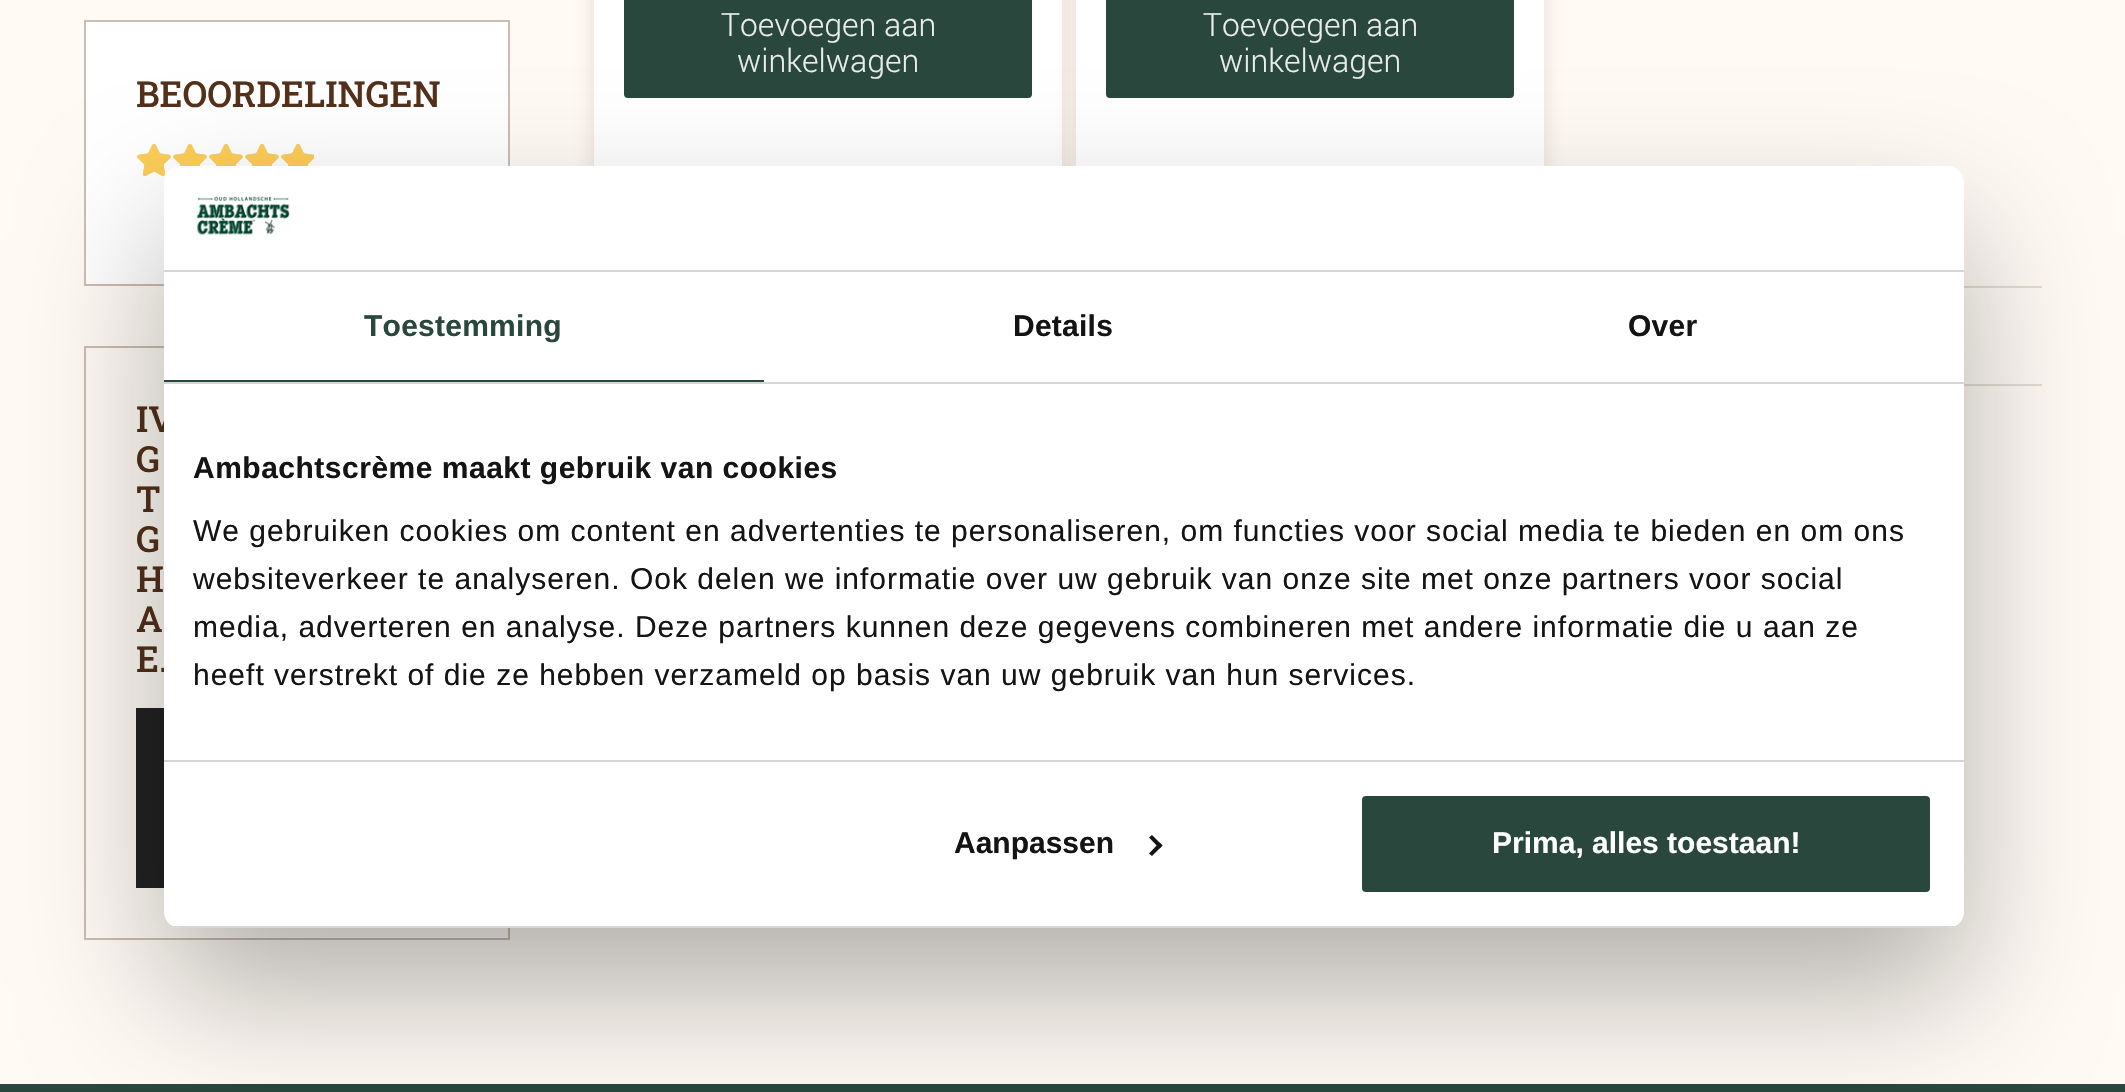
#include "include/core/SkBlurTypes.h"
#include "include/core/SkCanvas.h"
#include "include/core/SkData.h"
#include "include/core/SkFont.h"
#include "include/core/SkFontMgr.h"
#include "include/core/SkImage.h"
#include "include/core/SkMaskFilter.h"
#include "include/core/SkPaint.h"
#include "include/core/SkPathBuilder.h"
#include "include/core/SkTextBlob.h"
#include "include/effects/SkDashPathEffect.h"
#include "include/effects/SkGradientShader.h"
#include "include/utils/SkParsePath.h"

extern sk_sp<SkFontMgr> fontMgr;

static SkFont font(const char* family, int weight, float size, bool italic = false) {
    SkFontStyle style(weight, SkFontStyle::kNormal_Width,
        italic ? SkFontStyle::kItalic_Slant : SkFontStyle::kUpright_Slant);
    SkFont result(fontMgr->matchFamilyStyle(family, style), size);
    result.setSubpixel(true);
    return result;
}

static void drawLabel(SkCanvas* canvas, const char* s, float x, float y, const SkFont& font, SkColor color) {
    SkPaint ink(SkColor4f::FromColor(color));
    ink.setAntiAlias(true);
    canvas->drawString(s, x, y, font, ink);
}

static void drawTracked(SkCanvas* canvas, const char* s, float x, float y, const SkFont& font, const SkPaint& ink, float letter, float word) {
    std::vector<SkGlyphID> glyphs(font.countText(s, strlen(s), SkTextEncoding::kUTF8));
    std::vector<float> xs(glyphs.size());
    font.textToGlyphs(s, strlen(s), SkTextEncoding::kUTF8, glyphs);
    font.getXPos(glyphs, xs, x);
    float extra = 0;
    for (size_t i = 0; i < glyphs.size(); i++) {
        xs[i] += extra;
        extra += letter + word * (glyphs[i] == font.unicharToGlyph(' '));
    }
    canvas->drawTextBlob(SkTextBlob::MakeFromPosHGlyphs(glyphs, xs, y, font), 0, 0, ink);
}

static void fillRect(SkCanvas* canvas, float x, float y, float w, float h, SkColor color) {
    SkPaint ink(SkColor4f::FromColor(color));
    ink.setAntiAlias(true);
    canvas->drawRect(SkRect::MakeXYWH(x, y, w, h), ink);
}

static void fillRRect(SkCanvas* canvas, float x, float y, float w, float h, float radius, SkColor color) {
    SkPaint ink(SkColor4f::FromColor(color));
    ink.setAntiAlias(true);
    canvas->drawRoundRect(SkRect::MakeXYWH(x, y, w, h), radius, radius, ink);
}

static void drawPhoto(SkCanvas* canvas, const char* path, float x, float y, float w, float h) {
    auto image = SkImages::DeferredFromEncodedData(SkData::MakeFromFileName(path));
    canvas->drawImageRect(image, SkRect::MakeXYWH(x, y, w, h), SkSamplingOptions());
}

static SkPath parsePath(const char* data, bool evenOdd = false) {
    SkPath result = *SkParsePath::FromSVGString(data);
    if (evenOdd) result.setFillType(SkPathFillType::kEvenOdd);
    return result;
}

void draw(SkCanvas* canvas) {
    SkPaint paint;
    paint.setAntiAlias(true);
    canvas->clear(0xFFFFFAF4);
    paint.setColor(0x2654301A);
    paint.setMaskFilter(SkMaskFilter::MakeBlur(kNormal_SkBlurStyle, 10));
    canvas->drawRect(SkRect::MakeXYWH(594, -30, 468, 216), paint);
    paint.setMaskFilter(nullptr);
    fillRect(canvas, 594, 0, 468, 166, 0xFFFFFFFF);
    paint.setColor(0xFF29473D);
    canvas->drawRoundRect(SkRect::MakeXYWH(625, -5, 406, 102), 3, 3, paint);
    paint.setStroke(true);
    paint.setStrokeWidth(2);
    canvas->drawRoundRect(SkRect::MakeXYWH(625, -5, 406, 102), 3, 3, paint);
    SkFont font1 = font("Roboto", 300, 32);
    drawLabel(canvas, "Toevoegen aan", 721, 36, font1, 0xFFEAEDEC);
    drawLabel(canvas, "winkelwagen", 737, 72, font1, 0xFFEAEDEC);
    paint.setStroke(false);
    paint.setColor(0x2654301A);
    paint.setMaskFilter(SkMaskFilter::MakeBlur(kNormal_SkBlurStyle, 10));
    canvas->drawRect(SkRect::MakeXYWH(1076, -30, 468, 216), paint);
    paint.setMaskFilter(nullptr);
    fillRect(canvas, 1076, 0, 468, 166, 0xFFFFFFFF);
    paint.setColor(0xFF29473D);
    canvas->drawRoundRect(SkRect::MakeXYWH(1107, -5, 406, 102), 3, 3, paint);
    paint.setStroke(true);
    canvas->drawRoundRect(SkRect::MakeXYWH(1107, -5, 406, 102), 3, 3, paint);
    drawLabel(canvas, "Toevoegen aan", 1203, 36, font1, 0xFFEAEDEC);
    drawLabel(canvas, "winkelwagen", 1219, 72, font1, 0xFFEAEDEC);
    fillRect(canvas, 1964, 286, 78, 2, 0xFFE5DCD3);
    fillRect(canvas, 1964, 384, 78, 2, 0xFFE5DCD3);
    paint.setStroke(false);
    paint.setColor(0xFFFFFFFF);
    canvas->drawRect(SkRect::MakeXYWH(85, 21, 424, 264), paint);
    paint.setStroke(true);
    paint.setColor(0xFFCBBDB2);
    canvas->drawRect(SkRect::MakeXYWH(85, 21, 424, 264), paint);
    SkFont font2 = font("Roboto Slab", 500, 36);
    drawLabel(canvas, "BEOORDELINGEN", 136, 107, font2, 0xFF54301A);
    drawPhoto(canvas, "assets/img1.png", 137, 144, 177, 32);
    drawPhoto(canvas, "assets/img2.png", 137, 144, 177, 32);
    canvas->drawRect(SkRect::MakeXYWH(85, 347, 424, 592), paint);
    drawLabel(canvas, "IV", 136, 432, font2, 0xFF54301A);
    drawLabel(canvas, "G", 136, 472, font2, 0xFF54301A);
    drawLabel(canvas, "T", 136, 512, font2, 0xFF54301A);
    drawLabel(canvas, "G", 136, 552, font2, 0xFF54301A);
    drawLabel(canvas, "H", 136, 592, font2, 0xFF54301A);
    drawLabel(canvas, "A", 136, 632, font2, 0xFF54301A);
    drawLabel(canvas, "E.", 136, 672, font2, 0xFF54301A);
    fillRect(canvas, 136, 708, 28, 180, 0xFF222222);
    fillRect(canvas, 0, 1084, 2125, 8, 0xFF29473D);
    paint.setStroke(false);
    paint.setColor(0x4D000000);
    paint.setMaskFilter(SkMaskFilter::MakeBlur(kNormal_SkBlurStyle, 68));
    canvas->drawRoundRect(SkRect::MakeXYWH(164, 230, 1800, 762), 16, 16, paint);
    paint.setMaskFilter(nullptr);
    fillRRect(canvas, 164, 166, 1800, 762, 16, 0xFFFFFFFF);
    fillRect(canvas, 164, 270, 1800, 2, 0xFFD6D6D6);
    drawPhoto(canvas, "assets/img3.png", 196, 196, 94, 40);
    fillRect(canvas, 164, 382, 1800, 2, 0xFFD6D6D6);
    fillRect(canvas, 164, 380, 600, 2, 0xFF29473D);
    SkFont font3 = font("Liberation Sans", 700, 30);
    paint.setColor(0xFF29473D);
    drawTracked(canvas, "Toestemming", 364, 336, font3, paint, 0.25f, 0);
    paint.setColor(0xFF141414);
    drawTracked(canvas, "Details", 1013, 336, font3, paint, 0.25f, 0);
    drawTracked(canvas, "Over", 1628, 336, font3, paint, 0.25f, 0);
    fillRect(canvas, 164, 760, 1800, 2, 0xFFD6D6D6);
    drawTracked(canvas, "Ambachtscrème maakt gebruik van cookies", 193, 478, font3, paint, 0.5f, 0);
    SkFont font4 = font("Liberation Sans", 400, 30);
    drawTracked(canvas, "We gebruiken cookies om content en advertenties te personaliseren, om functies voor social media te bieden en om ons", 193, 541, font4, paint, 1, 0);
    drawTracked(canvas, "websiteverkeer te analyseren. Ook delen we informatie over uw gebruik van onze site met onze partners voor social", 193, 589, font4, paint, 1, 0);
    drawTracked(canvas, "media, adverteren en analyse. Deze partners kunnen deze gegevens combineren met andere informatie die u aan ze", 193, 637, font4, paint, 1, 0);
    drawTracked(canvas, "heeft verstrekt of die ze hebben verzameld op basis van uw gebruik van hun services.", 193, 685, font4, paint, 1, 0);
    canvas->save();
    canvas->clipPath(parsePath("M180 166H1948C1957 166 1964 173 1964 182V912C1964 921 1957 928 1948 928H180C171 928 164 921 164 912V182C164 173 171 166 180 166Z"), true);
    fillRect(canvas, 164, 926, 1800, 2, 0xFFD6D6D6);
    canvas->restore();
    drawLabel(canvas, "Aanpassen", 954, 853, font3, 0xFF141414);
    canvas->drawPath(parsePath("M1152 835L1162.5 845.5L1159.5 848.5L1149 837.5Z"), paint);
    canvas->drawPath(parsePath("M1159.5 842.5L1162.5 845.5L1152 856L1149 853.5Z"), paint);
    paint.setColor(0xFF29473D);
    canvas->drawRoundRect(SkRect::MakeXYWH(1360, 794, 572, 100), 6, 6, paint);
    paint.setStroke(true);
    paint.setStrokeWidth(4);
    paint.setColor(0xFFFFFFFF);
    canvas->drawRoundRect(SkRect::MakeXYWH(1360, 794, 572, 100), 6, 6, paint);
    drawLabel(canvas, "Prima, alles toestaan!", 1492, 853, font3, 0xFFFFFFFF);
}
